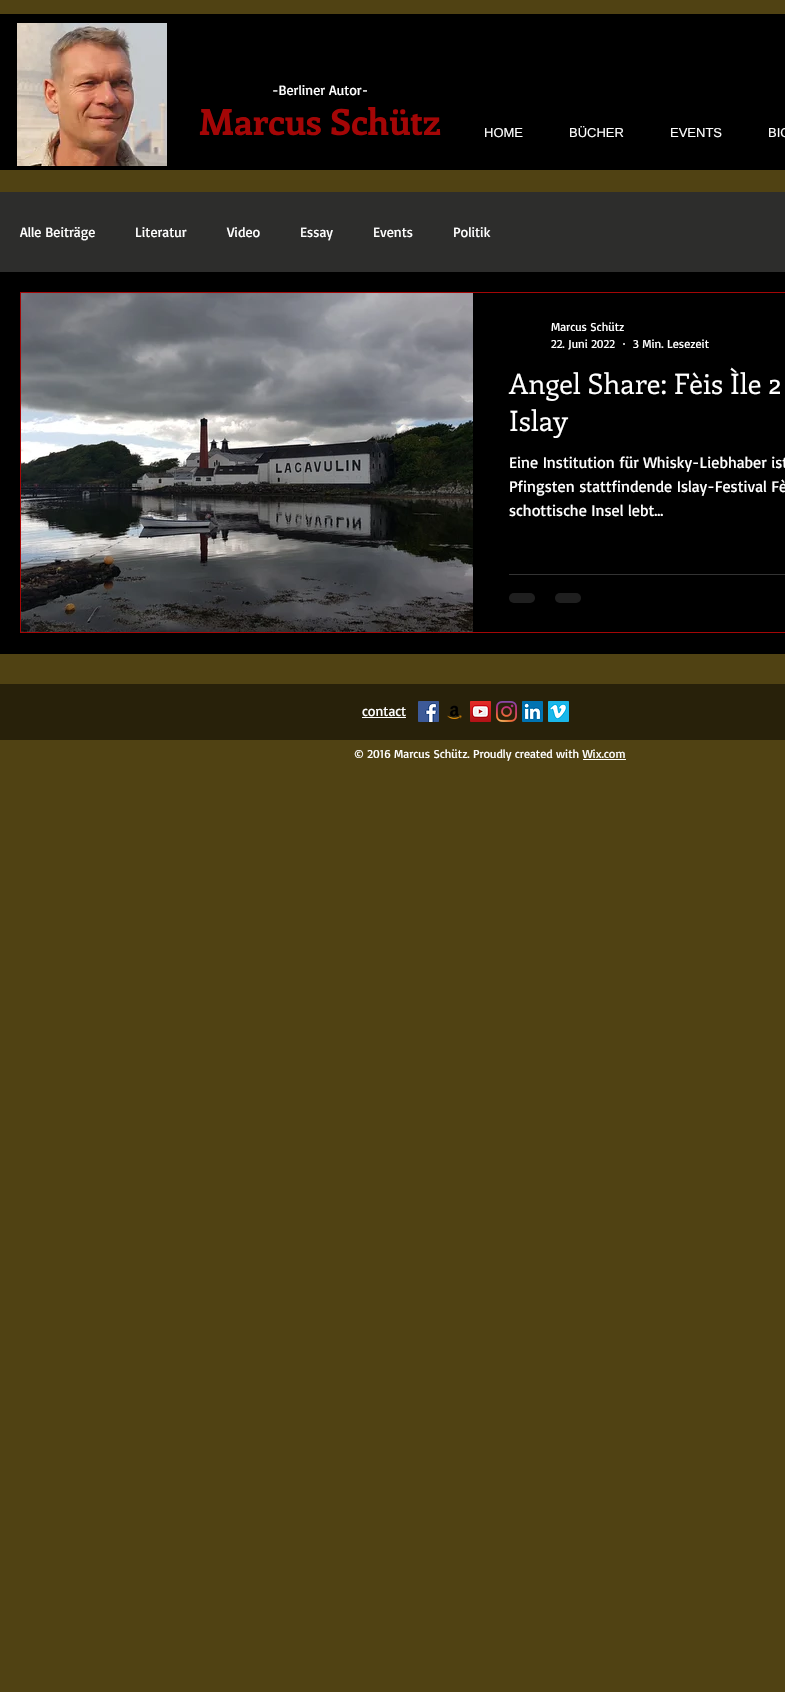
#include "include/core/SkBlurTypes.h"
#include "include/core/SkCanvas.h"
#include "include/core/SkData.h"
#include "include/core/SkFont.h"
#include "include/core/SkFontMgr.h"
#include "include/core/SkImage.h"
#include "include/core/SkMaskFilter.h"
#include "include/core/SkPaint.h"
#include "include/core/SkPathBuilder.h"
#include "include/core/SkTextBlob.h"
#include "include/effects/SkDashPathEffect.h"
#include "include/effects/SkGradientShader.h"
#include "include/utils/SkParsePath.h"

extern sk_sp<SkFontMgr> fontMgr;

static SkFont font(const char* family, int weight, float size, bool italic = false) {
    SkFontStyle style(weight, SkFontStyle::kNormal_Width,
        italic ? SkFontStyle::kItalic_Slant : SkFontStyle::kUpright_Slant);
    SkFont result(fontMgr->matchFamilyStyle(family, style), size);
    result.setSubpixel(true);
    return result;
}

static void drawLabel(SkCanvas* canvas, const char* s, float x, float y, const SkFont& font, SkColor color) {
    SkPaint ink(SkColor4f::FromColor(color));
    ink.setAntiAlias(true);
    canvas->drawString(s, x, y, font, ink);
}

static void fillRect(SkCanvas* canvas, float x, float y, float w, float h, SkColor color) {
    SkPaint ink(SkColor4f::FromColor(color));
    ink.setAntiAlias(true);
    canvas->drawRect(SkRect::MakeXYWH(x, y, w, h), ink);
}

static void fillRRect(SkCanvas* canvas, float x, float y, float w, float h, float radius, SkColor color) {
    SkPaint ink(SkColor4f::FromColor(color));
    ink.setAntiAlias(true);
    canvas->drawRoundRect(SkRect::MakeXYWH(x, y, w, h), radius, radius, ink);
}

static void drawPhoto(SkCanvas* canvas, const char* path, float x, float y, float w, float h) {
    auto image = SkImages::DeferredFromEncodedData(SkData::MakeFromFileName(path));
    canvas->drawImageRect(image, SkRect::MakeXYWH(x, y, w, h), SkSamplingOptions());
}

void draw(SkCanvas* canvas) {
    SkPaint paint;
    paint.setAntiAlias(true);
    canvas->clear(0xFF504213);
    fillRect(canvas, 0, 14, 785, 156, 0xFF000000);
    drawPhoto(canvas, "assets/img1.png", 17, 23, 150, 143);
    SkFont font1 = font("Basic", 400, 14);
    drawLabel(canvas, "-Berliner Autor-", 272, 95, font1, 0xFFFFFFFF);
    SkFont font2 = font("Enriqueta", 700, 36);
    drawLabel(canvas, "Marcus Schütz", 199, 135, font2, 0xFFA40606);
    SkFont font3 = font("Liberation Sans", 400, 13);
    drawLabel(canvas, "HOME", 484, 137, font3, 0xFFFFFFFF);
    drawLabel(canvas, "BÜCHER", 569, 137, font3, 0xFFFFFFFF);
    drawLabel(canvas, "EVENTS", 670, 137, font3, 0xFFFFFFFF);
    drawLabel(canvas, "BIO", 768, 137, font3, 0xFFFFFFFF);
    fillRect(canvas, 0, 272, 785, 382, 0xFF000000);
    fillRect(canvas, 0, 192, 785, 80, 0xFF2D2D2C);
    drawLabel(canvas, "Alle Beiträge", 20, 237, font1, 0xFFFFFFFF);
    drawLabel(canvas, "Literatur", 135, 237, font1, 0xFFFFFFFF);
    drawLabel(canvas, "Video", 227, 237, font1, 0xFFFFFFFF);
    drawLabel(canvas, "Essay", 300, 237, font1, 0xFFFFFFFF);
    drawLabel(canvas, "Events", 373, 237, font1, 0xFFFFFFFF);
    drawLabel(canvas, "Politik", 453, 237, font1, 0xFFFFFFFF);
    paint.setStroke(true);
    paint.setStrokeWidth(1);
    paint.setColor(0xFFA40606);
    canvas->drawRect(SkRect::MakeXYWH(20.5f, 292.5f, 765, 340), paint);
    drawPhoto(canvas, "assets/img2.png", 21, 293, 452, 339);
    SkFont font4 = font("Basic", 400, 12);
    drawLabel(canvas, "Marcus Schütz", 551, 331, font4, 0xFFFFFFFF);
    drawLabel(canvas, "22. Juni 2022", 551, 348, font4, 0xFFFFFFFF);
    paint.setStroke(false);
    paint.setColor(0xFFFFFFFF);
    canvas->drawCircle(624, 344, 1, paint);
    drawLabel(canvas, "3 Min. Lesezeit", 633, 348, font4, 0xFFFFFFFF);
    SkFont font5 = font("Enriqueta", 400, 28);
    drawLabel(canvas, "Angel Share: Fèis Ìle 2", 509, 394, font5, 0xFFFFFFFF);
    drawLabel(canvas, "Islay", 509, 431, font5, 0xFFFFFFFF);
    SkFont font6 = font("Basic", 400, 16);
    drawLabel(canvas, "Eine Institution für Whisky-Liebhaber ist", 509, 468, font6, 0xFFFFFFFF);
    drawLabel(canvas, "Pfingsten stattfindende Islay-Festival Fè", 509, 492, font6, 0xFFFFFFFF);
    drawLabel(canvas, "schottische Insel lebt...", 509, 516, font6, 0xFFFFFFFF);
    fillRect(canvas, 509, 574, 276, 1, 0xFF333333);
    fillRRect(canvas, 509, 593, 26, 10, 5, 0xFF1F1F1F);
    fillRRect(canvas, 555, 593, 26, 10, 5, 0xFF1F1F1F);
    fillRect(canvas, 0, 684, 785, 56, 0xFF28210A);
    drawLabel(canvas, "contact", 362, 716, font1, 0xFFFFFFFF);
    fillRect(canvas, 362, 717, 44, 1, 0xFFFFFFFF);
    drawPhoto(canvas, "assets/img3.png", 418, 701, 21, 21);
    drawPhoto(canvas, "assets/img4.png", 447, 705, 15, 14);
    drawPhoto(canvas, "assets/img5.png", 470, 701, 21, 21);
    drawPhoto(canvas, "assets/img6.png", 496, 701, 21, 21);
    drawPhoto(canvas, "assets/img7.png", 522, 701, 21, 21);
    drawPhoto(canvas, "assets/img8.png", 548, 701, 21, 21);
    drawLabel(canvas, "© 2016 Marcus Schütz. Proudly created with Wix.com", 354, 758, font4, 0xFFFFFFFF);
    fillRect(canvas, 583, 759, 43, 1, 0xFFFFFFFF);
}
